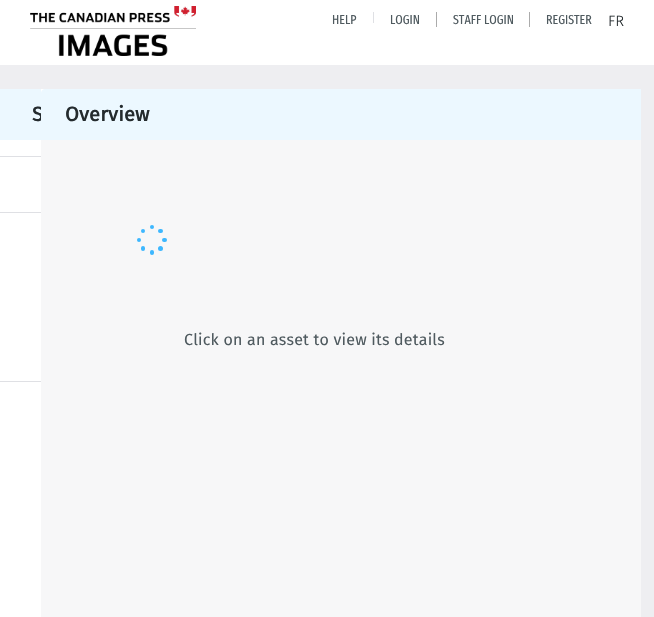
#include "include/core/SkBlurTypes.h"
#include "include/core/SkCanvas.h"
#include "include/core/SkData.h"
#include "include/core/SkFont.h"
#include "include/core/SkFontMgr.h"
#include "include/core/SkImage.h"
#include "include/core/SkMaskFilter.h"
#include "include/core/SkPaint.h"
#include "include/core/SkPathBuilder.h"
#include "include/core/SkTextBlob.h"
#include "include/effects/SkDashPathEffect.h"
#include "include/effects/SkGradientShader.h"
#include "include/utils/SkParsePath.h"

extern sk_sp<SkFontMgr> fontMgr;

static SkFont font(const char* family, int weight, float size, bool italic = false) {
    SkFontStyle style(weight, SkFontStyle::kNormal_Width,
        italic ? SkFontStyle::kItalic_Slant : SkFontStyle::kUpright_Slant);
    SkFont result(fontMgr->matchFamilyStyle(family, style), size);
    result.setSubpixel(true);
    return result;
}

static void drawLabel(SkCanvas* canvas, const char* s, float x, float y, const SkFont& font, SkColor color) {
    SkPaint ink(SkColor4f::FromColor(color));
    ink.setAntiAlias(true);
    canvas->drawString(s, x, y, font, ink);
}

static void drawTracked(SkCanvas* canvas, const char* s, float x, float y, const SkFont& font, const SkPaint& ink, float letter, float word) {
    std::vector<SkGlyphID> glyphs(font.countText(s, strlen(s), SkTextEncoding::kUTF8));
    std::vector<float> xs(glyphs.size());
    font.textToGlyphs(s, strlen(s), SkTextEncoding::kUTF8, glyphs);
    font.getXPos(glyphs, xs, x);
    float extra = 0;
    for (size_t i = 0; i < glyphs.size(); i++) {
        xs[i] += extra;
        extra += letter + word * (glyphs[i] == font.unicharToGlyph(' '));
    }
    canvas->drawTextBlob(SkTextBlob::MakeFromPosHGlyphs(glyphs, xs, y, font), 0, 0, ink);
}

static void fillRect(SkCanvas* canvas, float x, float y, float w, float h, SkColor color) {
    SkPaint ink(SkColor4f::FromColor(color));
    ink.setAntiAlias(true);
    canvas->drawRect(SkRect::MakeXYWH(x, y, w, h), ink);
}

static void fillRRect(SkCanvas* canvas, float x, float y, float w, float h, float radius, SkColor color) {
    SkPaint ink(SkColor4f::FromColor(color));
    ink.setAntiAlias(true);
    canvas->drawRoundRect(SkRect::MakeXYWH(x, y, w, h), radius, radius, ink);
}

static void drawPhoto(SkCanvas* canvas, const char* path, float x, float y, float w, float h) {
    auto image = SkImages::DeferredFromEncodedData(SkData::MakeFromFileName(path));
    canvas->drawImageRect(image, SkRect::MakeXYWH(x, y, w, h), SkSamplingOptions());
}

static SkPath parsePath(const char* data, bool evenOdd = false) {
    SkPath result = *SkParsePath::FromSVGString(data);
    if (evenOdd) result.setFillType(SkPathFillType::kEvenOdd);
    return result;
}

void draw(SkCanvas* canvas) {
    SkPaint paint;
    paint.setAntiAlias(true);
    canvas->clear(0xFFEEEEF1);
    fillRect(canvas, 0, 0, 654, 65, 0xFFFFFFFF);
    drawPhoto(canvas, "assets/img1.png", 30, 6, 166, 50);
    SkFont font1 = font("Fira Sans Extra Condensed", 400, 13);
    drawLabel(canvas, "HELP", 332, 24, font1, 0xFF4F5A5F);
    fillRect(canvas, 373, 12, 1, 11, 0xFFDFE0E4);
    drawLabel(canvas, "LOGIN", 390, 24, font1, 0xFF4F5A5F);
    fillRect(canvas, 436, 12, 1, 15, 0xFFABABAB);
    drawLabel(canvas, "STAFF LOGIN", 453, 24, font1, 0xFF4F5A5F);
    fillRect(canvas, 529, 12, 1, 15, 0xFFABABAB);
    drawLabel(canvas, "REGISTER", 546, 24, font1, 0xFF4F5A5F);
    SkFont font2 = font("Fira Sans", 300, 15);
    drawLabel(canvas, "FR", 608, 26, font2, 0xFF242B2E);
    fillRect(canvas, 0, 89, 41, 51, 0xFFECF8FF);
    SkFont font3 = font("Fira Sans", 700, 20);
    paint.setColor(0xFF242B2E);
    drawTracked(canvas, "S", 32, 121, font3, paint, 0.2f, 0);
    fillRect(canvas, 0, 140, 41, 477, 0xFFFFFFFF);
    fillRect(canvas, 0, 156, 41, 1, 0xFFDFE0E4);
    fillRect(canvas, 0, 212, 41, 1, 0xFFDFE0E4);
    fillRect(canvas, 0, 381, 41, 1, 0xFFDFE0E4);
    fillRect(canvas, 41, 89, 4, 4, 0xFFFFFFFF);
    paint.setColor(0xFFECF8FF);
    canvas->drawPath(parsePath("M45 89H641V140H41V93C41 91 43 89 45 89Z"), paint);
    paint.setColor(0xFF242B2E);
    drawTracked(canvas, "Overview", 65, 121, font3, paint, 0.2f, 0);
    fillRect(canvas, 41, 140, 600, 477, 0xFFF7F7F8);
    SkFont font4 = font("Fira Sans", 400, 16);
    paint.setColor(0xFF4F5A5F);
    drawTracked(canvas, "Click on an asset to view its details", 184, 345, font4, paint, 0.2f, 0);
    paint.setColor(0xFF3DB7FF);
    canvas->drawCircle(152, 227, 2, paint);
    canvas->drawCircle(143, 231, 2, paint);
    fillRRect(canvas, 158, 229, 5, 4, 2, 0xFF3DB7FF);
    canvas->drawCircle(139, 240, 2, paint);
    fillRRect(canvas, 162, 238, 5, 4, 2, 0xFF3DB7FF);
    fillRRect(canvas, 141, 246, 4, 5, 2, 0xFF3DB7FF);
    canvas->drawCircle(160.5f, 248.5f, 2.5f, paint);
    fillRRect(canvas, 150, 250, 4, 5, 2, 0xFF3DB7FF);
}
